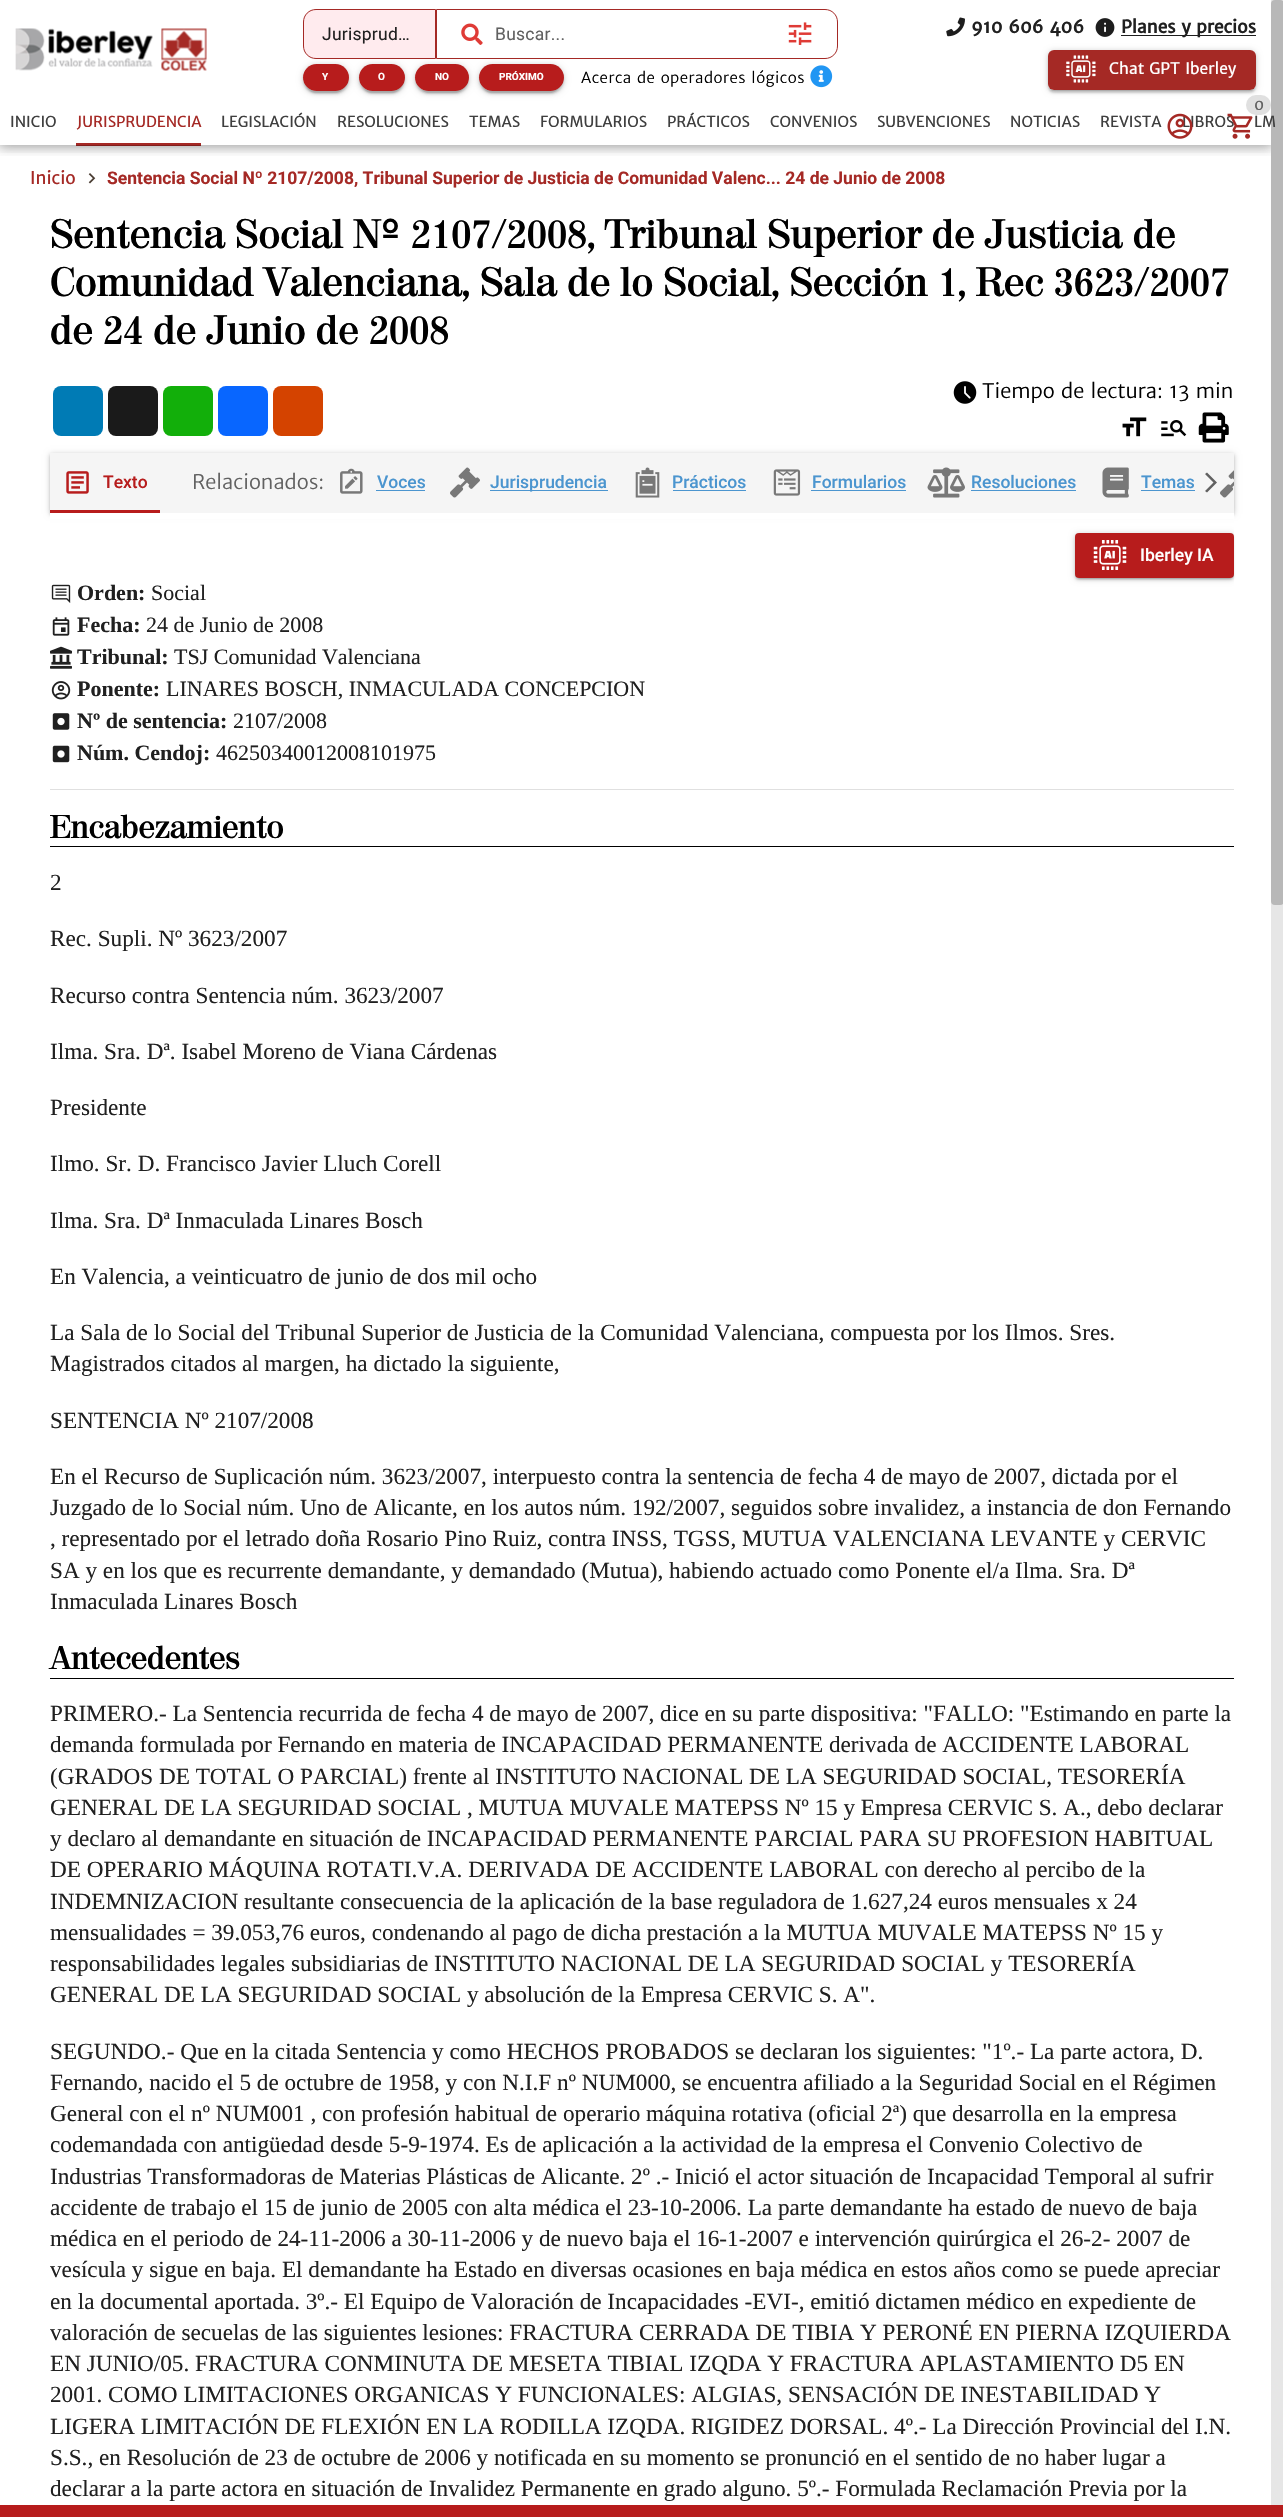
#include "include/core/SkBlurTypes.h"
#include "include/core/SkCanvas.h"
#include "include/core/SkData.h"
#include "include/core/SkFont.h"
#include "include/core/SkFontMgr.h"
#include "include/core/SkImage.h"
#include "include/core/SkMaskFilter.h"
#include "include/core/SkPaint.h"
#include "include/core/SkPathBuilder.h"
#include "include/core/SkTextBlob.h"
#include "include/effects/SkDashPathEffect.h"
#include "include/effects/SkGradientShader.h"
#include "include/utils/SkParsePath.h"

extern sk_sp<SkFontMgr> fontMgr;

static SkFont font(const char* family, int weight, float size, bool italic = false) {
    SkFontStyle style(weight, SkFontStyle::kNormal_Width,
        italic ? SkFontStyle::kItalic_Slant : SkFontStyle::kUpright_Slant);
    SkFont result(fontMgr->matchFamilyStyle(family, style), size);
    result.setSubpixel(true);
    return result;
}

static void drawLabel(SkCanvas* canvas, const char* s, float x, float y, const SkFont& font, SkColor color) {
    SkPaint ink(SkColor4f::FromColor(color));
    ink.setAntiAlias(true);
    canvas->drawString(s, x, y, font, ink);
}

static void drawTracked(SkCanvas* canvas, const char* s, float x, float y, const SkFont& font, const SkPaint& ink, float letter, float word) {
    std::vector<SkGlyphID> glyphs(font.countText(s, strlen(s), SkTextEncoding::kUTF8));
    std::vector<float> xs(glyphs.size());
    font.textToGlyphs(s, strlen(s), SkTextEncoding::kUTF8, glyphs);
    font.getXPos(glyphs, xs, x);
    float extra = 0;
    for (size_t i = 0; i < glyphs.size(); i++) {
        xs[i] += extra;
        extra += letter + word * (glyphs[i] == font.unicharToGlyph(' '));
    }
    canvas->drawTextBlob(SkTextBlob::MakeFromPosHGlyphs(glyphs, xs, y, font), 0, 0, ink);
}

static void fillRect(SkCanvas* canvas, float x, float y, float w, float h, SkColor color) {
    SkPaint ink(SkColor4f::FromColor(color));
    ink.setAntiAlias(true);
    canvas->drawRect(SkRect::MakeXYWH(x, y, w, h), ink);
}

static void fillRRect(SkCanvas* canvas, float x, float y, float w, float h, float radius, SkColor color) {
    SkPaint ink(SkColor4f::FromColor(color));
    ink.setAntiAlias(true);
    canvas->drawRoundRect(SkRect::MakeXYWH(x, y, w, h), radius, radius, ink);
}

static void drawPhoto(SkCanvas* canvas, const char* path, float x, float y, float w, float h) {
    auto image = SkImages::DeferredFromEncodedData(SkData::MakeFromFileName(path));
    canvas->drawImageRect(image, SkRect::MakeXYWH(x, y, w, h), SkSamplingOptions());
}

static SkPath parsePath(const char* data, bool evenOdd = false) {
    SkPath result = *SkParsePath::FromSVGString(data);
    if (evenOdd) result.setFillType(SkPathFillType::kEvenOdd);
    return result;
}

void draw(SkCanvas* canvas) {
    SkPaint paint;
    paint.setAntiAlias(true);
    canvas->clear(0xFFFFFFFF);
    fillRect(canvas, 1271, 0, 12, 2505, 0xFFE6E6E6);
    drawPhoto(canvas, "assets/img1.png", 15, 28, 192, 43);
    paint.setColor(0xFFFFEBEE);
    canvas->drawPath(parsePath("M316 9.5H435.5V58.5H316C309 58.5 303.5 53 303.5 46V22C303.5 15 309 9.5 316 9.5Z"), paint);
    paint.setStroke(true);
    paint.setStrokeWidth(1);
    paint.setColor(0xFFA52925);
    canvas->drawPath(parsePath("M316 9.5H435.5V58.5H316C309 58.5 303.5 53 303.5 46V22C303.5 15 309 9.5 316 9.5Z"), paint);
    canvas->drawPath(parsePath("M436.5 9.5H825C832 9.5 837.5 15 837.5 22V46C837.5 53 832 58.5 825 58.5H436.5Z"), paint);
    drawPhoto(canvas, "assets/img2.png", 461, 23, 22, 22);
    drawPhoto(canvas, "assets/img3.png", 788, 22, 24, 23);
    fillRRect(canvas, 303, 64, 46, 27, 13.5f, 0xFFB71C1C);
    fillRRect(canvas, 359, 64, 46, 27, 13.5f, 0xFFB71C1C);
    fillRRect(canvas, 415, 64, 54, 27, 13.5f, 0xFFB71C1C);
    fillRRect(canvas, 479, 64, 85, 27, 13.5f, 0xFFB71C1C);
    drawPhoto(canvas, "assets/img4.png", 810, 65, 23, 23);
    drawPhoto(canvas, "assets/img5.png", 946, 17, 19, 20);
    drawPhoto(canvas, "assets/img6.png", 1095, 18, 20, 19);
    fillRect(canvas, 1121, 35, 135, 1, 0xFF1D1D1D);
    fillRRect(canvas, 1048, 50, 208, 40, 6, 0xFFA52925);
    canvas->save();
    canvas->clipPath(parsePath("M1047 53H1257V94H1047ZM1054 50H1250C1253.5 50 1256 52.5 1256 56V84C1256 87.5 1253.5 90 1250 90H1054C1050.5 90 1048 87.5 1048 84V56C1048 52.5 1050.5 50 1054 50Z", true), true);
    paint.setStroke(false);
    paint.setColor(0x1F000000);
    paint.setMaskFilter(SkMaskFilter::MakeBlur(kNormal_SkBlurStyle, 0.5f));
    canvas->drawRoundRect(SkRect::MakeXYWH(1050, 56, 204, 35), 4, 4, paint);
    paint.setMaskFilter(nullptr);
    canvas->restore();
    canvas->save();
    canvas->clipPath(parsePath("M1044 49H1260V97H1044ZM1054 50H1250C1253.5 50 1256 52.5 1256 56V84C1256 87.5 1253.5 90 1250 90H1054C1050.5 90 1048 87.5 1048 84V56C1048 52.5 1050.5 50 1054 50Z", true), true);
    paint.setColor(0x24000000);
    paint.setMaskFilter(SkMaskFilter::MakeBlur(kNormal_SkBlurStyle, 1));
    canvas->drawRoundRect(SkRect::MakeXYWH(1048, 53, 208, 40), 6, 6, paint);
    paint.setMaskFilter(nullptr);
    canvas->restore();
    canvas->save();
    canvas->clipPath(parsePath("M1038 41H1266V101H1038ZM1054 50H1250C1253.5 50 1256 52.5 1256 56V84C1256 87.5 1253.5 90 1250 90H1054C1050.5 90 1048 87.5 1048 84V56C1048 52.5 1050.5 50 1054 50Z", true), true);
    paint.setColor(0x33000000);
    paint.setMaskFilter(SkMaskFilter::MakeBlur(kNormal_SkBlurStyle, 3));
    canvas->drawRoundRect(SkRect::MakeXYWH(1048, 51, 208, 40), 6, 6, paint);
    paint.setMaskFilter(nullptr);
    canvas->restore();
    drawPhoto(canvas, "assets/img7.png", 1066, 55, 30, 28);
    SkFont font1 = font("Merriweather Sans", 400, 15);
    drawLabel(canvas, "LIBROS", 1182, 127, font1, 0xFF3F3F3F);
    drawPhoto(canvas, "assets/img8.png", 1227, 113, 26, 26);
    fillRRect(canvas, 1246, 95, 25, 20, 10, 0xFFE0E0E0);
    drawPhoto(canvas, "assets/img9.png", 1167, 113, 26, 26);
    fillRect(canvas, 76, 143, 125, 3, 0xFFA52925);
    fillRRect(canvas, 1271, 0, 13, 905, 4, 0xFFB8B8B8);
    canvas->save();
    canvas->clipRect(SkRect::MakeXYWH(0, 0, 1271, 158));
    canvas->clipRect(SkRect::MakeXYWH(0, 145, 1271, 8));
    paint.setColor(0x3D000000);
    paint.setMaskFilter(SkMaskFilter::MakeBlur(kNormal_SkBlurStyle, 6));
    canvas->drawRect(SkRect::MakeXYWH(0, 0, 1271, 145), paint);
    paint.setMaskFilter(nullptr);
    canvas->restore();
    canvas->save();
    canvas->clipRect(SkRect::MakeXYWH(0, 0, 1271, 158));
    canvas->clipRect(SkRect::MakeXYWH(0, 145, 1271, 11));
    paint.setColor(0x33000000);
    paint.setMaskFilter(SkMaskFilter::MakeBlur(kNormal_SkBlurStyle, 6));
    canvas->drawRect(SkRect::MakeXYWH(-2, -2, 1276, 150), paint);
    paint.setMaskFilter(nullptr);
    canvas->restore();
    SkFont font2 = font("Roboto", 400, 17.5f);
    paint.setColor(0xFF202020);
    drawTracked(canvas, "Jurisprud…", 322, 40, font2, paint, 0.25f, 0);
    paint.setColor(0xFF616161);
    drawTracked(canvas, "Buscar...", 495, 40, font2, paint, 0.25f, 0);
    canvas->save();
    canvas->clipPath(parsePath("M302 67H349V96H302ZM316.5 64H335.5C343 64 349 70 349 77.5C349 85 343 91 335.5 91H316.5C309 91 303 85 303 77.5C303 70 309 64 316.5 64Z", true), true);
    paint.setColor(0x1F000000);
    paint.setMaskFilter(SkMaskFilter::MakeBlur(kNormal_SkBlurStyle, 0.5f));
    canvas->drawRoundRect(SkRect::MakeXYWH(305, 70, 41, 23), 11.5f, 11.5f, paint);
    paint.setMaskFilter(nullptr);
    canvas->restore();
    canvas->save();
    canvas->clipPath(parsePath("M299 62H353V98H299ZM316.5 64H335.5C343 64 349 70 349 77.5C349 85 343 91 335.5 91H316.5C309 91 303 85 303 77.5C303 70 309 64 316.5 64Z", true), true);
    paint.setColor(0x24000000);
    paint.setMaskFilter(SkMaskFilter::MakeBlur(kNormal_SkBlurStyle, 1));
    canvas->drawRoundRect(SkRect::MakeXYWH(303, 66, 46, 28), 14, 14, paint);
    paint.setMaskFilter(nullptr);
    canvas->restore();
    canvas->save();
    canvas->clipPath(parsePath("M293 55H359V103H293ZM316.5 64H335.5C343 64 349 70 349 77.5C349 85 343 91 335.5 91H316.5C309 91 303 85 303 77.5C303 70 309 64 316.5 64Z", true), true);
    paint.setColor(0x33000000);
    paint.setMaskFilter(SkMaskFilter::MakeBlur(kNormal_SkBlurStyle, 3));
    canvas->drawRoundRect(SkRect::MakeXYWH(303, 65, 46, 28), 14, 14, paint);
    paint.setMaskFilter(nullptr);
    canvas->restore();
    SkFont font3 = font("Roboto", 700, 10);
    drawLabel(canvas, "Y", 322, 80, font3, 0xFFFFFFFF);
    canvas->save();
    canvas->clipPath(parsePath("M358 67H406V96H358ZM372.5 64H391.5C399 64 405 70 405 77.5C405 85 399 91 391.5 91H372.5C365 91 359 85 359 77.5C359 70 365 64 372.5 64Z", true), true);
    paint.setColor(0x1F000000);
    paint.setMaskFilter(SkMaskFilter::MakeBlur(kNormal_SkBlurStyle, 0.5f));
    canvas->drawRoundRect(SkRect::MakeXYWH(361, 70, 42, 23), 11.5f, 11.5f, paint);
    paint.setMaskFilter(nullptr);
    canvas->restore();
    canvas->save();
    canvas->clipPath(parsePath("M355 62H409V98H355ZM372.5 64H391.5C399 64 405 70 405 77.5C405 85 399 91 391.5 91H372.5C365 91 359 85 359 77.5C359 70 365 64 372.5 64Z", true), true);
    paint.setColor(0x24000000);
    paint.setMaskFilter(SkMaskFilter::MakeBlur(kNormal_SkBlurStyle, 1));
    canvas->drawRoundRect(SkRect::MakeXYWH(359, 66, 46, 28), 14, 14, paint);
    paint.setMaskFilter(nullptr);
    canvas->restore();
    canvas->save();
    canvas->clipPath(parsePath("M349 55H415V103H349ZM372.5 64H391.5C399 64 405 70 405 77.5C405 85 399 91 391.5 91H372.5C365 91 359 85 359 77.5C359 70 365 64 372.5 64Z", true), true);
    paint.setColor(0x33000000);
    paint.setMaskFilter(SkMaskFilter::MakeBlur(kNormal_SkBlurStyle, 3));
    canvas->drawRoundRect(SkRect::MakeXYWH(359, 65, 46, 28), 14, 14, paint);
    paint.setMaskFilter(nullptr);
    canvas->restore();
    drawLabel(canvas, "O", 378, 80, font3, 0xFFFFFFFF);
    canvas->save();
    canvas->clipPath(parsePath("M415 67H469V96H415ZM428.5 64H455.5C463 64 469 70 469 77.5C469 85 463 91 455.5 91H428.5C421 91 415 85 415 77.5C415 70 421 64 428.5 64Z", true), true);
    paint.setColor(0x1F000000);
    paint.setMaskFilter(SkMaskFilter::MakeBlur(kNormal_SkBlurStyle, 0.5f));
    canvas->drawRoundRect(SkRect::MakeXYWH(418, 70, 48, 23), 11.5f, 11.5f, paint);
    paint.setMaskFilter(nullptr);
    canvas->restore();
    canvas->save();
    canvas->clipPath(parsePath("M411 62H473V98H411ZM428.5 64H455.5C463 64 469 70 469 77.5C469 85 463 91 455.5 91H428.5C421 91 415 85 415 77.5C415 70 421 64 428.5 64Z", true), true);
    paint.setColor(0x24000000);
    paint.setMaskFilter(SkMaskFilter::MakeBlur(kNormal_SkBlurStyle, 1));
    canvas->drawRoundRect(SkRect::MakeXYWH(415, 66, 54, 28), 14, 14, paint);
    paint.setMaskFilter(nullptr);
    canvas->restore();
    canvas->save();
    canvas->clipPath(parsePath("M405 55H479V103H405ZM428.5 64H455.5C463 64 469 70 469 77.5C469 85 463 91 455.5 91H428.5C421 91 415 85 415 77.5C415 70 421 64 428.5 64Z", true), true);
    paint.setColor(0x33000000);
    paint.setMaskFilter(SkMaskFilter::MakeBlur(kNormal_SkBlurStyle, 3));
    canvas->drawRoundRect(SkRect::MakeXYWH(415, 65, 54, 28), 14, 14, paint);
    paint.setMaskFilter(nullptr);
    canvas->restore();
    drawLabel(canvas, "NO", 435, 80, font3, 0xFFFFFFFF);
    canvas->save();
    canvas->clipPath(parsePath("M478 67H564V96H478ZM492.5 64H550.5C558 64 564 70 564 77.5C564 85 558 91 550.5 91H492.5C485 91 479 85 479 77.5C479 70 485 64 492.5 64Z", true), true);
    paint.setColor(0x1F000000);
    paint.setMaskFilter(SkMaskFilter::MakeBlur(kNormal_SkBlurStyle, 0.5f));
    canvas->drawRoundRect(SkRect::MakeXYWH(481, 70, 80, 23), 11.5f, 11.5f, paint);
    paint.setMaskFilter(nullptr);
    canvas->restore();
    canvas->save();
    canvas->clipPath(parsePath("M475 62H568V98H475ZM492.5 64H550.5C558 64 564 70 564 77.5C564 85 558 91 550.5 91H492.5C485 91 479 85 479 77.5C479 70 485 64 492.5 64Z", true), true);
    paint.setColor(0x24000000);
    paint.setMaskFilter(SkMaskFilter::MakeBlur(kNormal_SkBlurStyle, 1));
    canvas->drawRoundRect(SkRect::MakeXYWH(479, 66, 85, 28), 14, 14, paint);
    paint.setMaskFilter(nullptr);
    canvas->restore();
    canvas->save();
    canvas->clipPath(parsePath("M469 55H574V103H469ZM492.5 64H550.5C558 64 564 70 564 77.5C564 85 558 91 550.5 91H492.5C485 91 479 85 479 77.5C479 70 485 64 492.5 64Z", true), true);
    paint.setColor(0x33000000);
    paint.setMaskFilter(SkMaskFilter::MakeBlur(kNormal_SkBlurStyle, 3));
    canvas->drawRoundRect(SkRect::MakeXYWH(479, 65, 85, 28), 14, 14, paint);
    paint.setMaskFilter(nullptr);
    canvas->restore();
    drawLabel(canvas, "PRÓXIMO", 499, 80, font3, 0xFFFFFFFF);
    SkFont font4 = font("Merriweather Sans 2", 400, 15);
    paint.setColor(0xFF000000);
    drawTracked(canvas, "Acerca de operadores lógicos", 581, 83, font4, paint, 0.5f, 0);
    SkFont font5 = font("Merriweather Sans", 700, 17.5f);
    drawLabel(canvas, "910 606 406", 971, 33, font5, 0xFF202020);
    drawLabel(canvas, "Planes y precios", 1121, 33, font5, 0xFF202020);
    SkFont font6 = font("Merriweather Sans", 400, 15.75f);
    drawLabel(canvas, "Chat GPT Iberley", 1109, 74, font6, 0xFFFFFFFF);
    drawLabel(canvas, "0", 1254, 110, font1, 0xFF616161);
    drawLabel(canvas, "INICIO", 10, 127, font1, 0xFF3F3F3F);
    drawLabel(canvas, "JURISPRUDENCIA", 77, 127, font1, 0xFFA52925);
    drawLabel(canvas, "LEGISLACIÓN", 221, 127, font1, 0xFF3F3F3F);
    drawLabel(canvas, "RESOLUCIONES", 337, 127, font1, 0xFF3F3F3F);
    drawLabel(canvas, "TEMAS", 469, 127, font1, 0xFF3F3F3F);
    drawLabel(canvas, "FORMULARIOS", 540, 127, font1, 0xFF3F3F3F);
    drawLabel(canvas, "PRÁCTICOS", 667, 127, font1, 0xFF3F3F3F);
    drawLabel(canvas, "CONVENIOS", 770, 127, font1, 0xFF3F3F3F);
    drawLabel(canvas, "SUBVENCIONES", 877, 127, font1, 0xFF3F3F3F);
    drawLabel(canvas, "NOTICIAS", 1010, 127, font1, 0xFF3F3F3F);
    drawLabel(canvas, "REVISTA", 1100, 127, font1, 0xFF3F3F3F);
    drawLabel(canvas, "LM", 1254, 127, font1, 0xFF3F3F3F);
    SkFont font7 = font("Merriweather Sans", 400, 17.5f);
    drawLabel(canvas, "Inicio", 30, 184, font7, 0xFFA52925);
    drawPhoto(canvas, "assets/img10.png", 88, 173, 8, 11);
    SkFont font8 = font("Roboto", 700, 17.5f);
    drawLabel(canvas, "Sentencia Social Nº 2107/2008, Tribunal Superior de Justicia de Comunidad Valenc... 24 de Junio de 2008", 107, 184, font8, 0xFFA52925);
    SkFont font9 = font("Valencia", 700, 40);
    drawLabel(canvas, "Sentencia Social Nº 2107/2008, Tribunal Superior de Justicia de", 50, 248, font9, 0xFF000000);
    drawLabel(canvas, "Comunidad Valenciana, Sala de lo Social, Sección 1, Rec 3623/2007", 50, 296, font9, 0xFF000000);
    drawLabel(canvas, "de 24 de Junio de 2008", 50, 344, font9, 0xFF000000);
    fillRRect(canvas, 53, 386, 50, 50, 8, 0xFF007BB5);
    fillRRect(canvas, 108, 386, 50, 50, 8, 0xFF1A1A1A);
    fillRRect(canvas, 163, 386, 50, 50, 8, 0xFF12AF0A);
    fillRRect(canvas, 218, 386, 50, 50, 8, 0xFF0866FF);
    fillRRect(canvas, 273, 386, 50, 50, 8, 0xFFD44300);
    drawPhoto(canvas, "assets/img11.png", 953, 381, 24, 23);
    SkFont font10 = font("Merriweather Sans 2", 400, 20);
    drawLabel(canvas, "Tiempo de lectura: 13 min", 982, 398, font10, 0xFF000000);
    drawPhoto(canvas, "assets/img12.png", 1122, 417, 25, 20);
    drawPhoto(canvas, "assets/img13.png", 1161, 420, 26, 17);
    drawPhoto(canvas, "assets/img14.png", 1198, 412, 31, 31);
    paint.setColor(0x24000000);
    paint.setMaskFilter(SkMaskFilter::MakeBlur(kNormal_SkBlurStyle, 1));
    canvas->drawRect(SkRect::MakeXYWH(50, 455, 1184, 60), paint);
    paint.setMaskFilter(nullptr);
    paint.setColor(0x33000000);
    paint.setMaskFilter(SkMaskFilter::MakeBlur(kNormal_SkBlurStyle, 3));
    canvas->drawRect(SkRect::MakeXYWH(50, 454, 1184, 60), paint);
    paint.setMaskFilter(nullptr);
    fillRect(canvas, 50, 453, 1184, 60, 0xFFF5F5F5);
    drawPhoto(canvas, "assets/img15.png", 66, 471, 23, 23);
    SkFont font11 = font("Roboto", 500, 17.5f);
    drawLabel(canvas, "Texto", 103, 488, font11, 0xFFB71C1C);
    fillRect(canvas, 50, 510, 110, 3, 0xFFB71C1C);
    drawLabel(canvas, "Relacionados:", 192, 489, font10, 0xFF616161);
    drawPhoto(canvas, "assets/img16.png", 340, 468, 23, 26);
    drawLabel(canvas, "Voces", 377, 488, font11, 0xFF4B95CF);
    fillRect(canvas, 376, 490, 49, 1, 0xFF4B95CF);
    drawPhoto(canvas, "assets/img17.png", 450, 467, 30, 31);
    fillRect(canvas, 490, 490, 118, 1, 0xFF4B95CF);
    drawLabel(canvas, "Jurisprudencia", 490, 488, font11, 0xFF4B95CF);
    drawPhoto(canvas, "assets/img18.png", 635, 467, 25, 31);
    drawLabel(canvas, "Prácticos", 672, 488, font11, 0xFF4B95CF);
    fillRect(canvas, 673, 490, 73, 1, 0xFF4B95CF);
    drawPhoto(canvas, "assets/img19.png", 773, 469, 28, 27);
    drawLabel(canvas, "Formularios", 812, 488, font11, 0xFF4B95CF);
    fillRect(canvas, 811, 490, 95, 1, 0xFF4B95CF);
    drawPhoto(canvas, "assets/img20.png", 927, 467, 38, 31);
    drawLabel(canvas, "Resoluciones", 971, 488, font11, 0xFF4B95CF);
    fillRect(canvas, 971, 490, 105, 1, 0xFF4B95CF);
    drawPhoto(canvas, "assets/img21.png", 1102, 467, 27, 31);
    drawLabel(canvas, "Temas", 1141, 488, font11, 0xFF4B95CF);
    fillRect(canvas, 1141, 490, 54, 1, 0xFF4B95CF);
    drawPhoto(canvas, "assets/img22.png", 1220, 470, 14, 28);
    paint.setColor(0xFF616161);
    canvas->drawPath(parsePath("M1207 492.5L1205 491L1213.5 482.5L1205 474L1207 472.5L1217 482.5Z"), paint);
    fillRect(canvas, 50, 513, 1184, 6, 0xFFFFFFFF);
    fillRRect(canvas, 1075, 533, 159, 45, 4, 0xFFB71C1C);
    canvas->save();
    canvas->clipPath(parsePath("M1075 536H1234V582H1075ZM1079 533H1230C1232 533 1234 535 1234 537V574C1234 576 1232 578 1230 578H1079C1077 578 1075 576 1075 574V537C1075 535 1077 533 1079 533Z", true), true);
    paint.setColor(0x1F000000);
    paint.setMaskFilter(SkMaskFilter::MakeBlur(kNormal_SkBlurStyle, 0.5f));
    canvas->drawRoundRect(SkRect::MakeXYWH(1078, 539, 153, 40), 1, 1, paint);
    paint.setMaskFilter(nullptr);
    canvas->restore();
    canvas->save();
    canvas->clipPath(parsePath("M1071 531H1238V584H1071ZM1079 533H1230C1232 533 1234 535 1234 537V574C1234 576 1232 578 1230 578H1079C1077 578 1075 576 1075 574V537C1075 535 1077 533 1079 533Z", true), true);
    paint.setColor(0x24000000);
    paint.setMaskFilter(SkMaskFilter::MakeBlur(kNormal_SkBlurStyle, 1));
    canvas->drawRoundRect(SkRect::MakeXYWH(1075, 535, 159, 45), 4, 4, paint);
    paint.setMaskFilter(nullptr);
    canvas->restore();
    canvas->save();
    canvas->clipRect(SkRect::MakeXYWH(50, 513, 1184, 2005));
    canvas->clipPath(parsePath("M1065 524H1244V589H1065ZM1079 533H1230C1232 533 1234 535 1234 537V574C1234 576 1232 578 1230 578H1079C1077 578 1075 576 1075 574V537C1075 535 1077 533 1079 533Z", true), true);
    paint.setColor(0x33000000);
    paint.setMaskFilter(SkMaskFilter::MakeBlur(kNormal_SkBlurStyle, 3));
    canvas->drawRoundRect(SkRect::MakeXYWH(1075, 534, 159, 45), 4, 4, paint);
    paint.setMaskFilter(nullptr);
    canvas->restore();
    drawPhoto(canvas, "assets/img23.png", 1093, 540, 34, 30);
    drawLabel(canvas, "Iberley IA", 1140, 561, font11, 0xFFFFFFFF);
    drawPhoto(canvas, "assets/img24.png", 51, 584, 20, 19);
    SkFont font12 = font("Liberation Serif", 700, 22);
    drawLabel(canvas, "Orden:", 77, 600, font12, 0xFF202020);
    SkFont font13 = font("Liberation Serif", 400, 22);
    drawLabel(canvas, "Social", 151, 600, font13, 0xFF202020);
    drawPhoto(canvas, "assets/img25.png", 52, 617, 18, 19);
    drawLabel(canvas, "Fecha:", 77, 632, font12, 0xFF202020);
    drawLabel(canvas, "24 de Junio de 2008", 146, 632, font13, 0xFF202020);
    drawPhoto(canvas, "assets/img26.png", 50, 646, 22, 23);
    drawLabel(canvas, "Tribunal:", 77, 664, font12, 0xFF202020);
    drawLabel(canvas, "TSJ Comunidad Valenciana", 174, 664, font13, 0xFF202020);
    drawPhoto(canvas, "assets/img27.png", 51, 681, 20, 19);
    drawLabel(canvas, "Ponente:", 77, 696, font12, 0xFF202020);
    drawLabel(canvas, "LINARES BOSCH, INMACULADA CONCEPCION", 166, 696, font13, 0xFF202020);
    drawPhoto(canvas, "assets/img28.png", 52, 713, 18, 17);
    drawLabel(canvas, "Nº de sentencia:", 77, 728, font12, 0xFF202020);
    drawLabel(canvas, "2107/2008", 233, 728, font13, 0xFF202020);
    drawPhoto(canvas, "assets/img29.png", 52, 745, 18, 18);
    drawLabel(canvas, "Núm. Cendoj:", 77, 760, font12, 0xFF202020);
    drawLabel(canvas, "46250340012008101975", 216, 760, font13, 0xFF202020);
    fillRect(canvas, 50, 789, 1184, 1, 0xFFE0E0E0);
    fillRect(canvas, 50, 846, 1184, 1, 0xFF000000);
    SkFont font14 = font("Valencia", 700, 32);
    paint.setColor(0xFF000000);
    drawTracked(canvas, "Encabezamiento", 50, 838, font14, paint, -0.25f, 0);
    SkFont font15 = font("Liberation Serif", 400, 23.2f);
    drawLabel(canvas, "2", 50, 890, font15, 0xFF202020);
    drawLabel(canvas, "Rec. Supli. Nº 3623/2007", 50, 946, font15, 0xFF202020);
    drawLabel(canvas, "Recurso contra Sentencia núm. 3623/2007", 50, 1003, font15, 0xFF202020);
    drawLabel(canvas, "Ilma. Sra. Dª. Isabel Moreno de Viana Cárdenas", 50, 1059, font15, 0xFF202020);
    drawLabel(canvas, "Presidente", 50, 1115, font15, 0xFF202020);
    drawLabel(canvas, "Ilmo. Sr. D. Francisco Javier Lluch Corell", 50, 1171, font15, 0xFF202020);
    drawLabel(canvas, "Ilma. Sra. Dª Inmaculada Linares Bosch", 50, 1228, font15, 0xFF202020);
    drawLabel(canvas, "En Valencia, a veinticuatro de junio de dos mil ocho", 50, 1284, font15, 0xFF202020);
    drawLabel(canvas, "La Sala de lo Social del Tribunal Superior de Justicia de la Comunidad Valenciana, compuesta por los Ilmos. Sres.", 50, 1340, font15, 0xFF202020);
    drawLabel(canvas, "Magistrados citados al margen, ha dictado la siguiente,", 50, 1371, font15, 0xFF202020);
    drawLabel(canvas, "SENTENCIA Nº 2107/2008", 50, 1428, font15, 0xFF202020);
    drawLabel(canvas, "En el Recurso de Suplicación núm. 3623/2007, interpuesto contra la sentencia de fecha 4 de mayo de 2007, dictada por el", 50, 1484, font15, 0xFF202020);
    drawLabel(canvas, "Juzgado de lo Social núm. Uno de Alicante, en los autos núm. 192/2007, seguidos sobre invalidez, a instancia de don Fernando", 50, 1515, font15, 0xFF202020);
    drawLabel(canvas, ", representado por el letrado doña Rosario Pino Ruiz, contra INSS, TGSS, MUTUA VALENCIANA LEVANTE y CERVIC", 50, 1546, font15, 0xFF202020);
    drawLabel(canvas, "SA y en los que es recurrente demandante, y demandado (Mutua), habiendo actuado como Ponente el/a Ilma. Sra. Dª", 50, 1578, font15, 0xFF202020);
    drawLabel(canvas, "Inmaculada Linares Bosch", 50, 1609, font15, 0xFF202020);
    fillRect(canvas, 50, 1678, 1184, 1, 0xFF000000);
    drawTracked(canvas, "Antecedentes", 50, 1669, font14, paint, -0.25f, 0);
    drawLabel(canvas, "PRIMERO.- La Sentencia recurrida de fecha 4 de mayo de 2007, dice en su parte dispositiva: \"FALLO: \"Estimando en parte la", 50, 1721, font15, 0xFF202020);
    drawLabel(canvas, "demanda formulada por Fernando en materia de INCAPACIDAD PERMANENTE derivada de ACCIDENTE LABORAL", 50, 1752, font15, 0xFF202020);
    drawLabel(canvas, "(GRADOS DE TOTAL O PARCIAL) frente al INSTITUTO NACIONAL DE LA SEGURIDAD SOCIAL, TESORERÍA", 50, 1784, font15, 0xFF202020);
    drawLabel(canvas, "GENERAL DE LA SEGURIDAD SOCIAL , MUTUA MUVALE MATEPSS Nº 15 y Empresa CERVIC S. A., debo declarar", 50, 1815, font15, 0xFF202020);
    drawLabel(canvas, "y declaro al demandante en situación de INCAPACIDAD PERMANENTE PARCIAL PARA SU PROFESION HABITUAL", 50, 1846, font15, 0xFF202020);
    drawLabel(canvas, "DE OPERARIO MÁQUINA ROTATI.V.A. DERIVADA DE ACCIDENTE LABORAL con derecho al percibo de la", 50, 1877, font15, 0xFF202020);
    drawLabel(canvas, "INDEMNIZACION resultante consecuencia de la aplicación de la base reguladora de 1.627,24 euros mensuales x 24", 50, 1909, font15, 0xFF202020);
    drawLabel(canvas, "mensualidades = 39.053,76 euros, condenando al pago de dicha prestación a la MUTUA MUVALE MATEPSS Nº 15 y", 50, 1940, font15, 0xFF202020);
    drawLabel(canvas, "responsabilidades legales subsidiarias de INSTITUTO NACIONAL DE LA SEGURIDAD SOCIAL y TESORERÍA", 50, 1971, font15, 0xFF202020);
    drawLabel(canvas, "GENERAL DE LA SEGURIDAD SOCIAL y absolución de la Empresa CERVIC S. A\".", 50, 2002, font15, 0xFF202020);
    drawLabel(canvas, "SEGUNDO.- Que en la citada Sentencia y como HECHOS PROBADOS se declaran los siguientes: \"1º.- La parte actora, D.", 50, 2059, font15, 0xFF202020);
    drawLabel(canvas, "Fernando, nacido el 5 de octubre de 1958, y con N.I.F nº NUM000, se encuentra afiliado a la Seguridad Social en el Régimen", 50, 2090, font15, 0xFF202020);
    drawLabel(canvas, "General con el nº NUM001 , con profesión habitual de operario máquina rotativa (oficial 2ª) que desarrolla en la empresa", 50, 2121, font15, 0xFF202020);
    drawLabel(canvas, "codemandada con antigüedad desde 5-9-1974. Es de aplicación a la actividad de la empresa el Convenio Colectivo de", 50, 2152, font15, 0xFF202020);
    drawLabel(canvas, "Industrias Transformadoras de Materias Plásticas de Alicante. 2º .- Inició el actor situación de Incapacidad Temporal al sufrir", 50, 2184, font15, 0xFF202020);
    drawLabel(canvas, "accidente de trabajo el 15 de junio de 2005 con alta médica el 23-10-2006. La parte demandante ha estado de nuevo de baja", 50, 2215, font15, 0xFF202020);
    drawLabel(canvas, "médica en el periodo de 24-11-2006 a 30-11-2006 y de nuevo baja el 16-1-2007 e intervención quirúrgica el 26-2- 2007 de", 50, 2246, font15, 0xFF202020);
    drawLabel(canvas, "vesícula y sigue en baja. El demandante ha Estado en diversas ocasiones en baja médica en estos años como se puede apreciar", 50, 2277, font15, 0xFF202020);
    drawLabel(canvas, "en la documental aportada. 3º.- El Equipo de Valoración de Incapacidades -EVI-, emitió dictamen médico en expediente de", 50, 2309, font15, 0xFF202020);
    drawLabel(canvas, "valoración de secuelas de las siguientes lesiones: FRACTURA CERRADA DE TIBIA Y PERONÉ EN PIERNA IZQUIERDA", 50, 2340, font15, 0xFF202020);
    drawLabel(canvas, "EN JUNIO/05. FRACTURA CONMINUTA DE MESETA TIBIAL IZQDA Y FRACTURA APLASTAMIENTO D5 EN", 50, 2371, font15, 0xFF202020);
    drawLabel(canvas, "2001. COMO LIMITACIONES ORGANICAS Y FUNCIONALES: ALGIAS, SENSACIÓN DE INESTABILIDAD Y", 50, 2402, font15, 0xFF202020);
    drawLabel(canvas, "LIGERA LIMITACIÓN DE FLEXIÓN EN LA RODILLA IZQDA. RIGIDEZ DORSAL. 4º.- La Dirección Provincial del I.N.", 50, 2434, font15, 0xFF202020);
    drawLabel(canvas, "S.S., en Resolución de 23 de octubre de 2006 y notificada en su momento se pronunció en el sentido de no haber lugar a", 50, 2465, font15, 0xFF202020);
    drawLabel(canvas, "declarar a la parte actora en situación de Invalidez Permanente en grado alguno. 5º.- Formulada Reclamación Previa por la", 50, 2496, font15, 0xFF202020);
    fillRect(canvas, 0, 2505, 1283, 12, 0xFFB71C1C);
}
